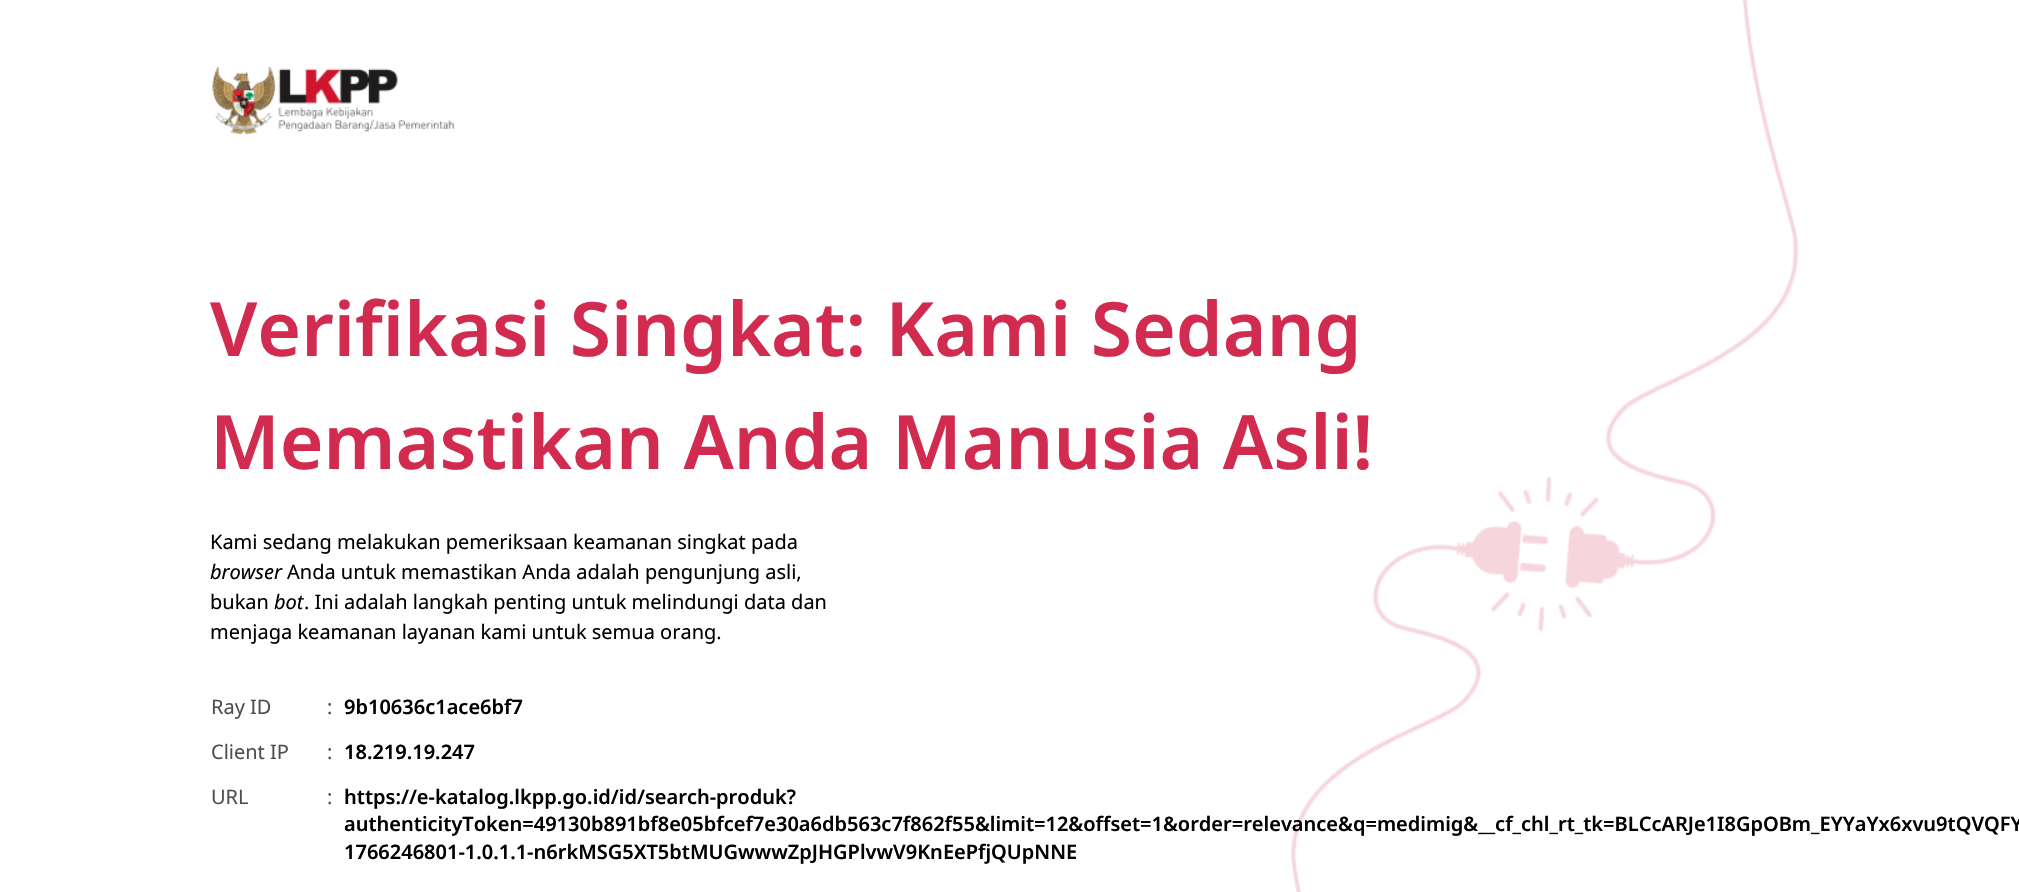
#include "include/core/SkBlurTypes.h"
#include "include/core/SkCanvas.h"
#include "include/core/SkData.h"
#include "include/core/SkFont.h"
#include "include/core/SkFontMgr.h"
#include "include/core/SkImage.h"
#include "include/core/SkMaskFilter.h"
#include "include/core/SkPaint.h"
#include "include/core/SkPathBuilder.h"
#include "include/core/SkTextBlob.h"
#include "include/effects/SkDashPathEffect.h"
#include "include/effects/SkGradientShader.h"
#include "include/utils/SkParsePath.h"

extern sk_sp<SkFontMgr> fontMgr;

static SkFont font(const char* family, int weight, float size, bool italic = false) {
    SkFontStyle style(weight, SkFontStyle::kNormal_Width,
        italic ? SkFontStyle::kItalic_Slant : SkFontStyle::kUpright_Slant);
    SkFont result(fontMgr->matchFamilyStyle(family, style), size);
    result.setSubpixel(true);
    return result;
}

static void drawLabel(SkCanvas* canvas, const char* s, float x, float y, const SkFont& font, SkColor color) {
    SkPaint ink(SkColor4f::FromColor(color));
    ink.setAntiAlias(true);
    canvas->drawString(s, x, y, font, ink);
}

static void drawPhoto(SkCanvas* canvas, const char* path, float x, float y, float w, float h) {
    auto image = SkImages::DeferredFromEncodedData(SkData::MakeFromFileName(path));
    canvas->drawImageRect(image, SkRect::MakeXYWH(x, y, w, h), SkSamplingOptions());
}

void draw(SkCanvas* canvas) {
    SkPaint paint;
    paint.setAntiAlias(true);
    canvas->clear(0xFFFFFFFF);
    drawPhoto(canvas, "assets/img1.png", 1290, 0, 509, 892);
    drawPhoto(canvas, "assets/img2.png", 212, 66, 243, 69);
    SkFont font1 = font("Noto Sans", 600, 75);
    drawLabel(canvas, "Verifikasi Singkat: Kami Sedang", 210, 356, font1, 0xFFD22B50);
    drawLabel(canvas, "Memastikan Anda Manusia Asli!", 210, 469, font1, 0xFFD22B50);
    SkFont font2 = font("Noto Sans", 400, 20);
    drawLabel(canvas, "Kami sedang melakukan pemeriksaan keamanan singkat pada", 210, 549, font2, 0xFF000000);
    SkFont font3 = font("Noto Sans", 400, 20, true);
    drawLabel(canvas, "browser", 210, 579, font3, 0xFF000000);
    drawLabel(canvas, "Anda untuk memastikan Anda adalah pengunjung asli,", 287, 579, font2, 0xFF000000);
    drawLabel(canvas, "bukan", 210, 609, font2, 0xFF000000);
    drawLabel(canvas, "bot", 274, 609, font3, 0xFF000000);
    drawLabel(canvas, ". Ini adalah langkah penting untuk melindungi data dan", 304, 609, font2, 0xFF000000);
    drawLabel(canvas, "menjaga keamanan layanan kami untuk semua orang.", 210, 639, font2, 0xFF000000);
    drawLabel(canvas, "Ray ID", 211, 714, font2, 0xFF4F4F4F);
    drawLabel(canvas, ":", 327, 714, font2, 0xFF4F4F4F);
    SkFont font4 = font("Noto Sans", 600, 20);
    drawLabel(canvas, "9b10636c1ace6bf7", 344, 714, font4, 0xFF000000);
    drawLabel(canvas, "Client IP", 211, 759, font2, 0xFF4F4F4F);
    drawLabel(canvas, ":", 327, 759, font2, 0xFF4F4F4F);
    drawLabel(canvas, "18.219.19.247", 344, 759, font4, 0xFF000000);
    drawLabel(canvas, "URL", 211, 804, font2, 0xFF4F4F4F);
    drawLabel(canvas, ":", 327, 804, font2, 0xFF4F4F4F);
    drawLabel(canvas, "https://e-katalog.lkpp.go.id/id/search-produk?", 344, 804, font4, 0xFF000000);
    drawLabel(canvas, "authenticityToken=49130b891bf8e05bfcef7e30a6db563c7f862f55&limit=12&offset=1&order=relevance&q=medimig&__cf_chl_rt_tk=BLCcARJe1I8GpOBm_EYYaYx6xvu9tQVQFY", 344, 831, font4, 0xFF000000);
    drawLabel(canvas, "1766246801-1.0.1.1-n6rkMSG5XT5btMUGwwwZpJHGPlvwV9KnEePfjQUpNNE", 344, 859, font4, 0xFF000000);
}
